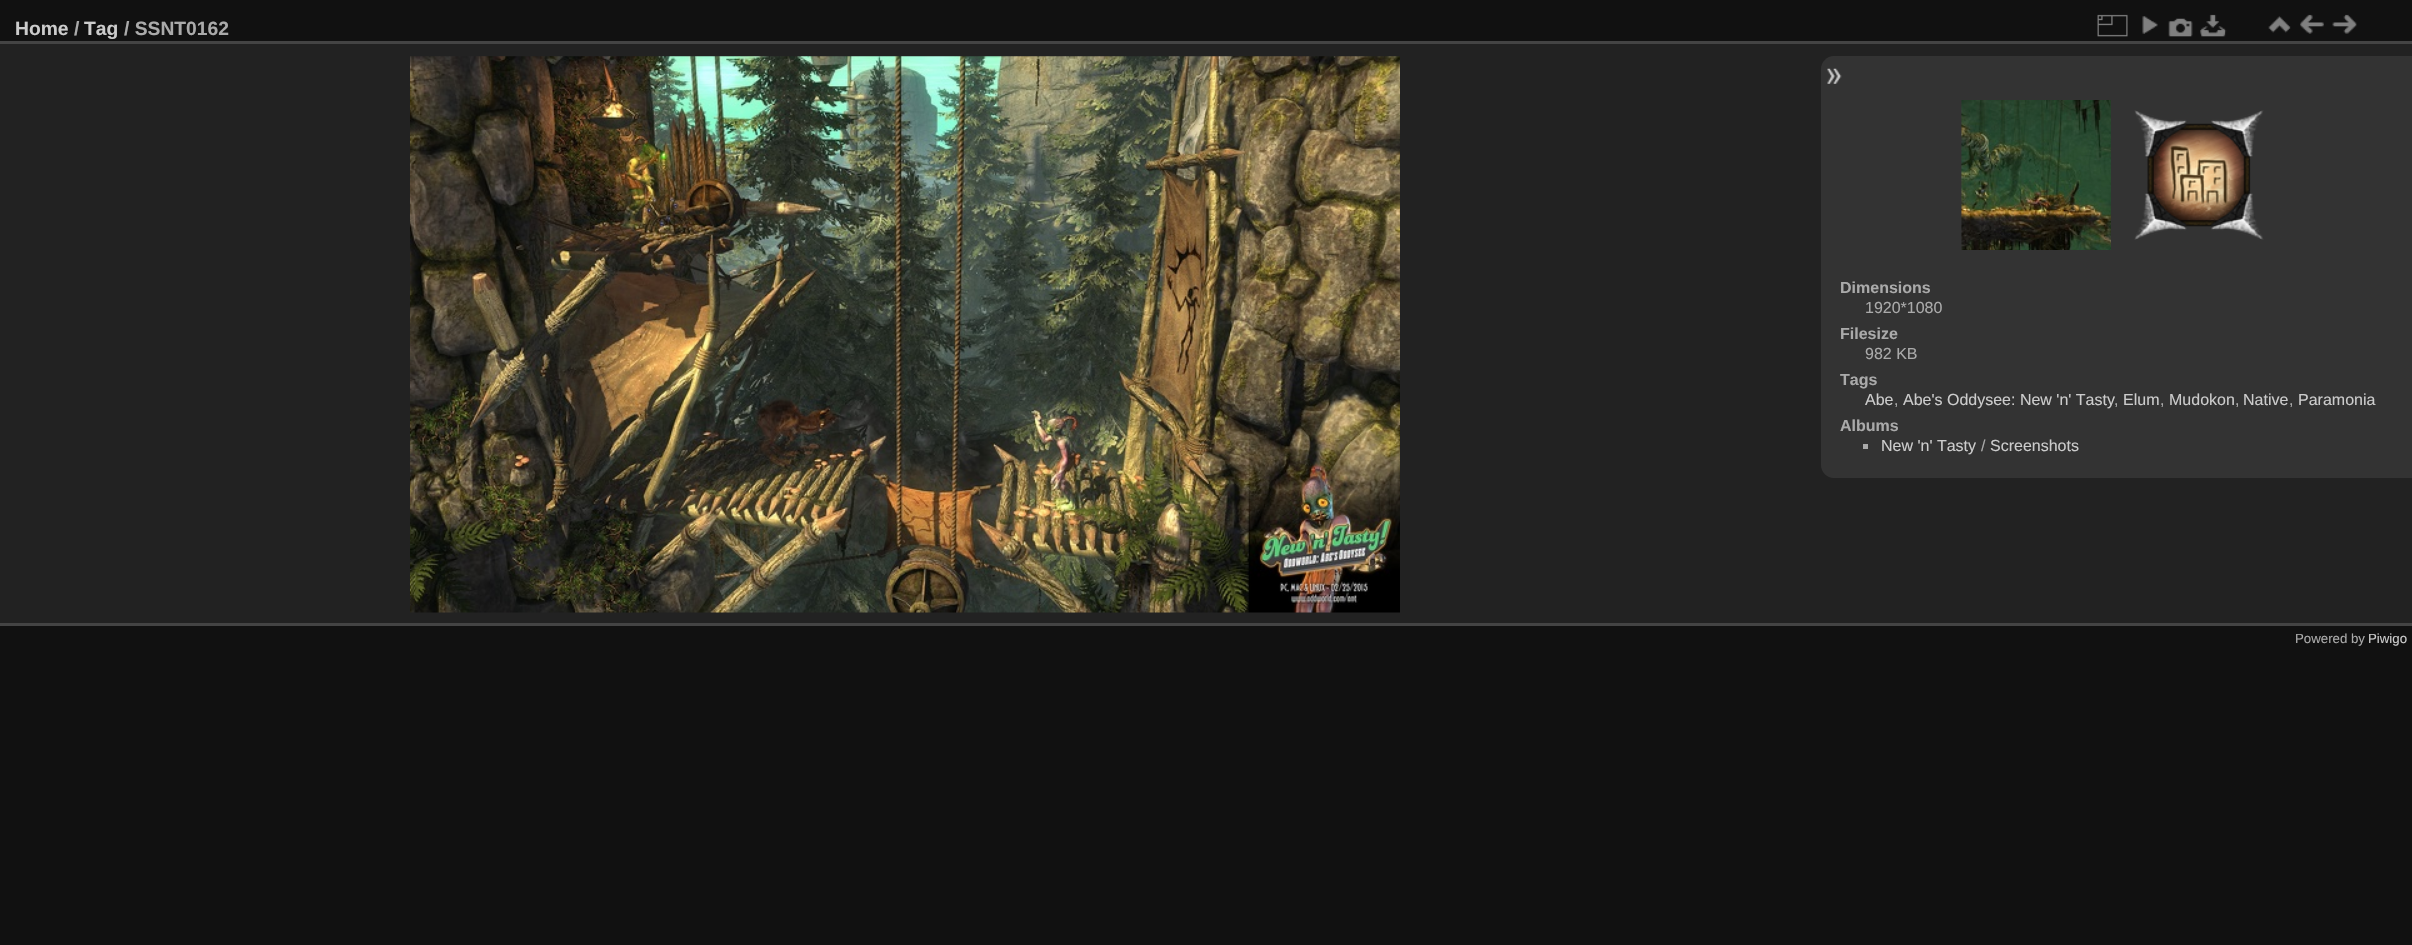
#include "include/core/SkBlurTypes.h"
#include "include/core/SkCanvas.h"
#include "include/core/SkData.h"
#include "include/core/SkFont.h"
#include "include/core/SkFontMgr.h"
#include "include/core/SkImage.h"
#include "include/core/SkMaskFilter.h"
#include "include/core/SkPaint.h"
#include "include/core/SkPathBuilder.h"
#include "include/core/SkTextBlob.h"
#include "include/effects/SkDashPathEffect.h"
#include "include/effects/SkGradientShader.h"
#include "include/utils/SkParsePath.h"

extern sk_sp<SkFontMgr> fontMgr;

static SkFont font(const char* family, int weight, float size, bool italic = false) {
    SkFontStyle style(weight, SkFontStyle::kNormal_Width,
        italic ? SkFontStyle::kItalic_Slant : SkFontStyle::kUpright_Slant);
    SkFont result(fontMgr->matchFamilyStyle(family, style), size);
    result.setSubpixel(true);
    return result;
}

static void drawLabel(SkCanvas* canvas, const char* s, float x, float y, const SkFont& font, SkColor color) {
    SkPaint ink(SkColor4f::FromColor(color));
    ink.setAntiAlias(true);
    canvas->drawString(s, x, y, font, ink);
}

static void fillRect(SkCanvas* canvas, float x, float y, float w, float h, SkColor color) {
    SkPaint ink(SkColor4f::FromColor(color));
    ink.setAntiAlias(true);
    canvas->drawRect(SkRect::MakeXYWH(x, y, w, h), ink);
}

static void drawPhoto(SkCanvas* canvas, const char* path, float x, float y, float w, float h) {
    auto image = SkImages::DeferredFromEncodedData(SkData::MakeFromFileName(path));
    canvas->drawImageRect(image, SkRect::MakeXYWH(x, y, w, h), SkSamplingOptions());
}

static SkPath parsePath(const char* data, bool evenOdd = false) {
    SkPath result = *SkParsePath::FromSVGString(data);
    if (evenOdd) result.setFillType(SkPathFillType::kEvenOdd);
    return result;
}

void draw(SkCanvas* canvas) {
    SkPaint paint;
    paint.setAntiAlias(true);
    canvas->clear(0xFF111111);
    fillRect(canvas, 0, 44, 2412, 579, 0xFF222222);
    fillRect(canvas, 0, 623, 2412, 3, 0xFF444444);
    fillRect(canvas, 0, 41, 2412, 3, 0xFF444444);
    SkFont font1 = font("Liberation Sans", 700, 19.25f);
    drawLabel(canvas, "Home", 15, 35, font1, 0xFFCCCCCC);
    drawLabel(canvas, "/", 74, 35, font1, 0xFFAAAAAA);
    drawLabel(canvas, "Tag", 84, 35, font1, 0xFFCCCCCC);
    drawLabel(canvas, "/ SSNT0162", 124, 35, font1, 0xFFAAAAAA);
    drawPhoto(canvas, "assets/img1.png", 2097, 14, 31, 23);
    drawPhoto(canvas, "assets/img2.png", 2142, 16, 16, 18);
    drawPhoto(canvas, "assets/img3.png", 2168, 18, 25, 19);
    drawPhoto(canvas, "assets/img4.png", 2200, 14, 27, 23);
    drawPhoto(canvas, "assets/img5.png", 2268, 16, 23, 17);
    drawPhoto(canvas, "assets/img6.png", 2300, 14, 24, 20);
    drawPhoto(canvas, "assets/img7.png", 2332, 14, 25, 20);
    drawPhoto(canvas, "assets/img8.png", 410, 56, 990, 557);
    paint.setColor(0xFF333333);
    canvas->drawPath(parsePath("M1834 56H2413V478H1834C1827 478 1821 472 1821 465V69C1821 62 1827 56 1834 56Z"), paint);
    drawPhoto(canvas, "assets/img9.png", 1827, 68, 15, 16);
    drawPhoto(canvas, "assets/img10.png", 1961, 100, 150, 150);
    drawPhoto(canvas, "assets/img11.png", 2134, 110, 130, 130);
    SkFont font2 = font("Liberation Sans", 700, 16);
    drawLabel(canvas, "Dimensions", 1840, 293, font2, 0xFFAAAAAA);
    SkFont font3 = font("Liberation Sans", 400, 16);
    drawLabel(canvas, "1920*1080", 1865, 313, font3, 0xFFAAAAAA);
    drawLabel(canvas, "Filesize", 1840, 339, font2, 0xFFAAAAAA);
    drawLabel(canvas, "982 KB", 1865, 359, font3, 0xFFAAAAAA);
    drawLabel(canvas, "Tags", 1840, 385, font2, 0xFFAAAAAA);
    drawLabel(canvas, "Abe", 1865, 405, font3, 0xFFCCCCCC);
    drawLabel(canvas, ",", 1894, 405, font3, 0xFFAAAAAA);
    drawLabel(canvas, "Abe's Oddysee: New 'n' Tasty", 1903, 405, font3, 0xFFCCCCCC);
    drawLabel(canvas, ",", 2114, 405, font3, 0xFFAAAAAA);
    drawLabel(canvas, "Elum", 2123, 405, font3, 0xFFCCCCCC);
    drawLabel(canvas, ",", 2160, 405, font3, 0xFFAAAAAA);
    drawLabel(canvas, "Mudokon", 2169, 405, font3, 0xFFCCCCCC);
    drawLabel(canvas, ",", 2235, 405, font3, 0xFFAAAAAA);
    drawLabel(canvas, "Native", 2243, 405, font3, 0xFFCCCCCC);
    drawLabel(canvas, ",", 2289, 405, font3, 0xFFAAAAAA);
    drawLabel(canvas, "Paramonia", 2298, 405, font3, 0xFFCCCCCC);
    drawLabel(canvas, "Albums", 1840, 431, font2, 0xFFAAAAAA);
    fillRect(canvas, 1863, 444, 5, 5, 0xFFAAAAAA);
    drawLabel(canvas, "New 'n' Tasty", 1881, 451, font3, 0xFFCCCCCC);
    drawLabel(canvas, "/", 1981, 451, font3, 0xFFAAAAAA);
    drawLabel(canvas, "Screenshots", 1990, 451, font3, 0xFFCCCCCC);
    SkFont font4 = font("Liberation Sans", 400, 13.25f);
    drawLabel(canvas, "Powered by", 2295, 643, font4, 0xFFAAAAAA);
    drawLabel(canvas, "Piwigo", 2368, 643, font4, 0xFFCCCCCC);
}
